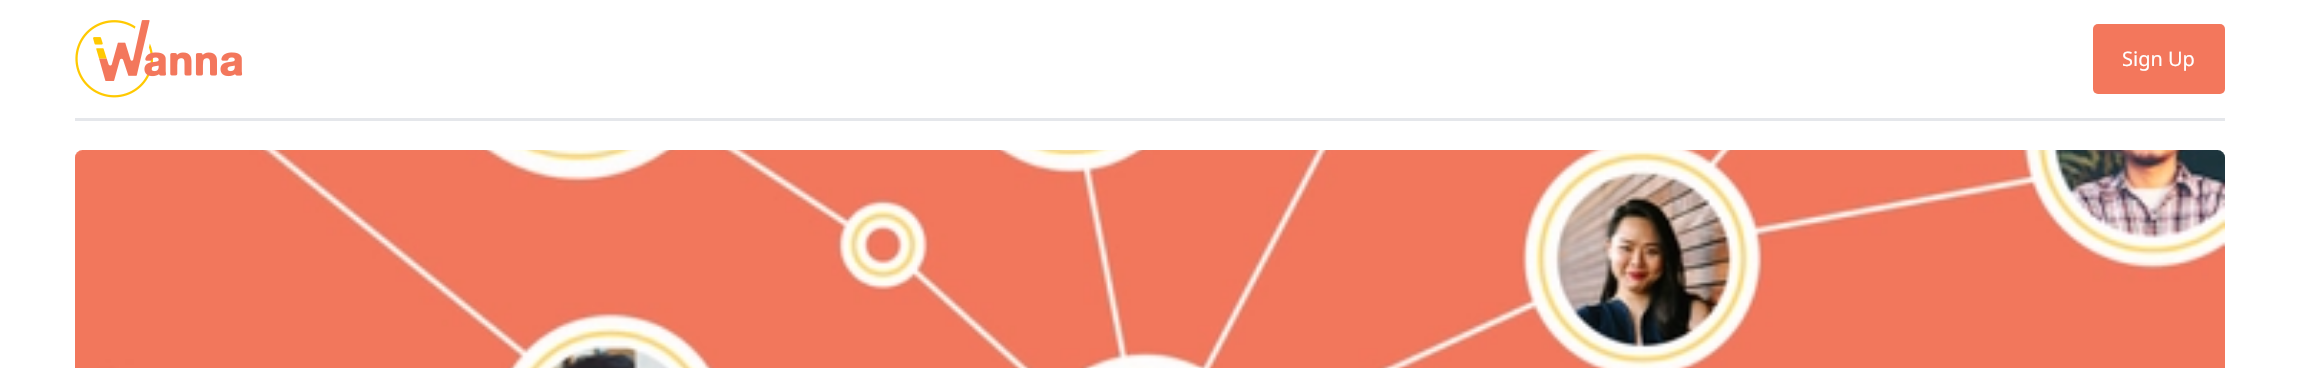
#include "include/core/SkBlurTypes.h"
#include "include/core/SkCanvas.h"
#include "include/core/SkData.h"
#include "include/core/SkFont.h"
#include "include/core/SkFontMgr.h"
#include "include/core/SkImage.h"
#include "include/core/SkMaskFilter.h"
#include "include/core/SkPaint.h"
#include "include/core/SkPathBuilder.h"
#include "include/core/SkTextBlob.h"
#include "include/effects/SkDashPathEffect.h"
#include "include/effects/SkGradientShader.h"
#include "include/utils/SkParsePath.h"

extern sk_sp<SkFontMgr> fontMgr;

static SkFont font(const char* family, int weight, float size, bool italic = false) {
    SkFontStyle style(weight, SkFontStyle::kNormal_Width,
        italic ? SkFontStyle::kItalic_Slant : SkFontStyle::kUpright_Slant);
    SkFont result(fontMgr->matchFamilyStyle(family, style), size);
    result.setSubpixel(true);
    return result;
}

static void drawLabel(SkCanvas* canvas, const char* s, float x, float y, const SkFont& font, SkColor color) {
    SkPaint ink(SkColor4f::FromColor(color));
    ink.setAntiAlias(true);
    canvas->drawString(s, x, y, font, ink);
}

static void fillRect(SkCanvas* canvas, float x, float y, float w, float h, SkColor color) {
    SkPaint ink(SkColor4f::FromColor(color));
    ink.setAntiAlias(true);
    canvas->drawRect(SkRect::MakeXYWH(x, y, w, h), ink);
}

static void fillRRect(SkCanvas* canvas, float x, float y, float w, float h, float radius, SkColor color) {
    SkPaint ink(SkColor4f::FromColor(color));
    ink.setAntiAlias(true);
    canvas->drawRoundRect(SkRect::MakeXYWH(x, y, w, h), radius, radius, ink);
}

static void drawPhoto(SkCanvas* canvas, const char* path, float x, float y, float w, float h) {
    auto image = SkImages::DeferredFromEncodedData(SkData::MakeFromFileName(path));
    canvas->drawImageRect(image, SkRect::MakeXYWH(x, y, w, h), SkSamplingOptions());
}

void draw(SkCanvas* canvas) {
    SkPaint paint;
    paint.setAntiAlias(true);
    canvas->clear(0xFFFFFFFF);
    fillRect(canvas, 75, 118, 2150, 3, 0xFFE5E7EB);
    drawPhoto(canvas, "assets/img1.png", 75, 20, 168, 78);
    fillRRect(canvas, 2093, 24, 132, 70, 5, 0xFFF3775C);
    SkFont font1 = font("Noto Sans", 400, 20);
    drawLabel(canvas, "Sign Up", 2122, 66, font1, 0xFFFFFFFF);
    drawPhoto(canvas, "assets/img2.png", 75, 150, 2150, 218);
}
